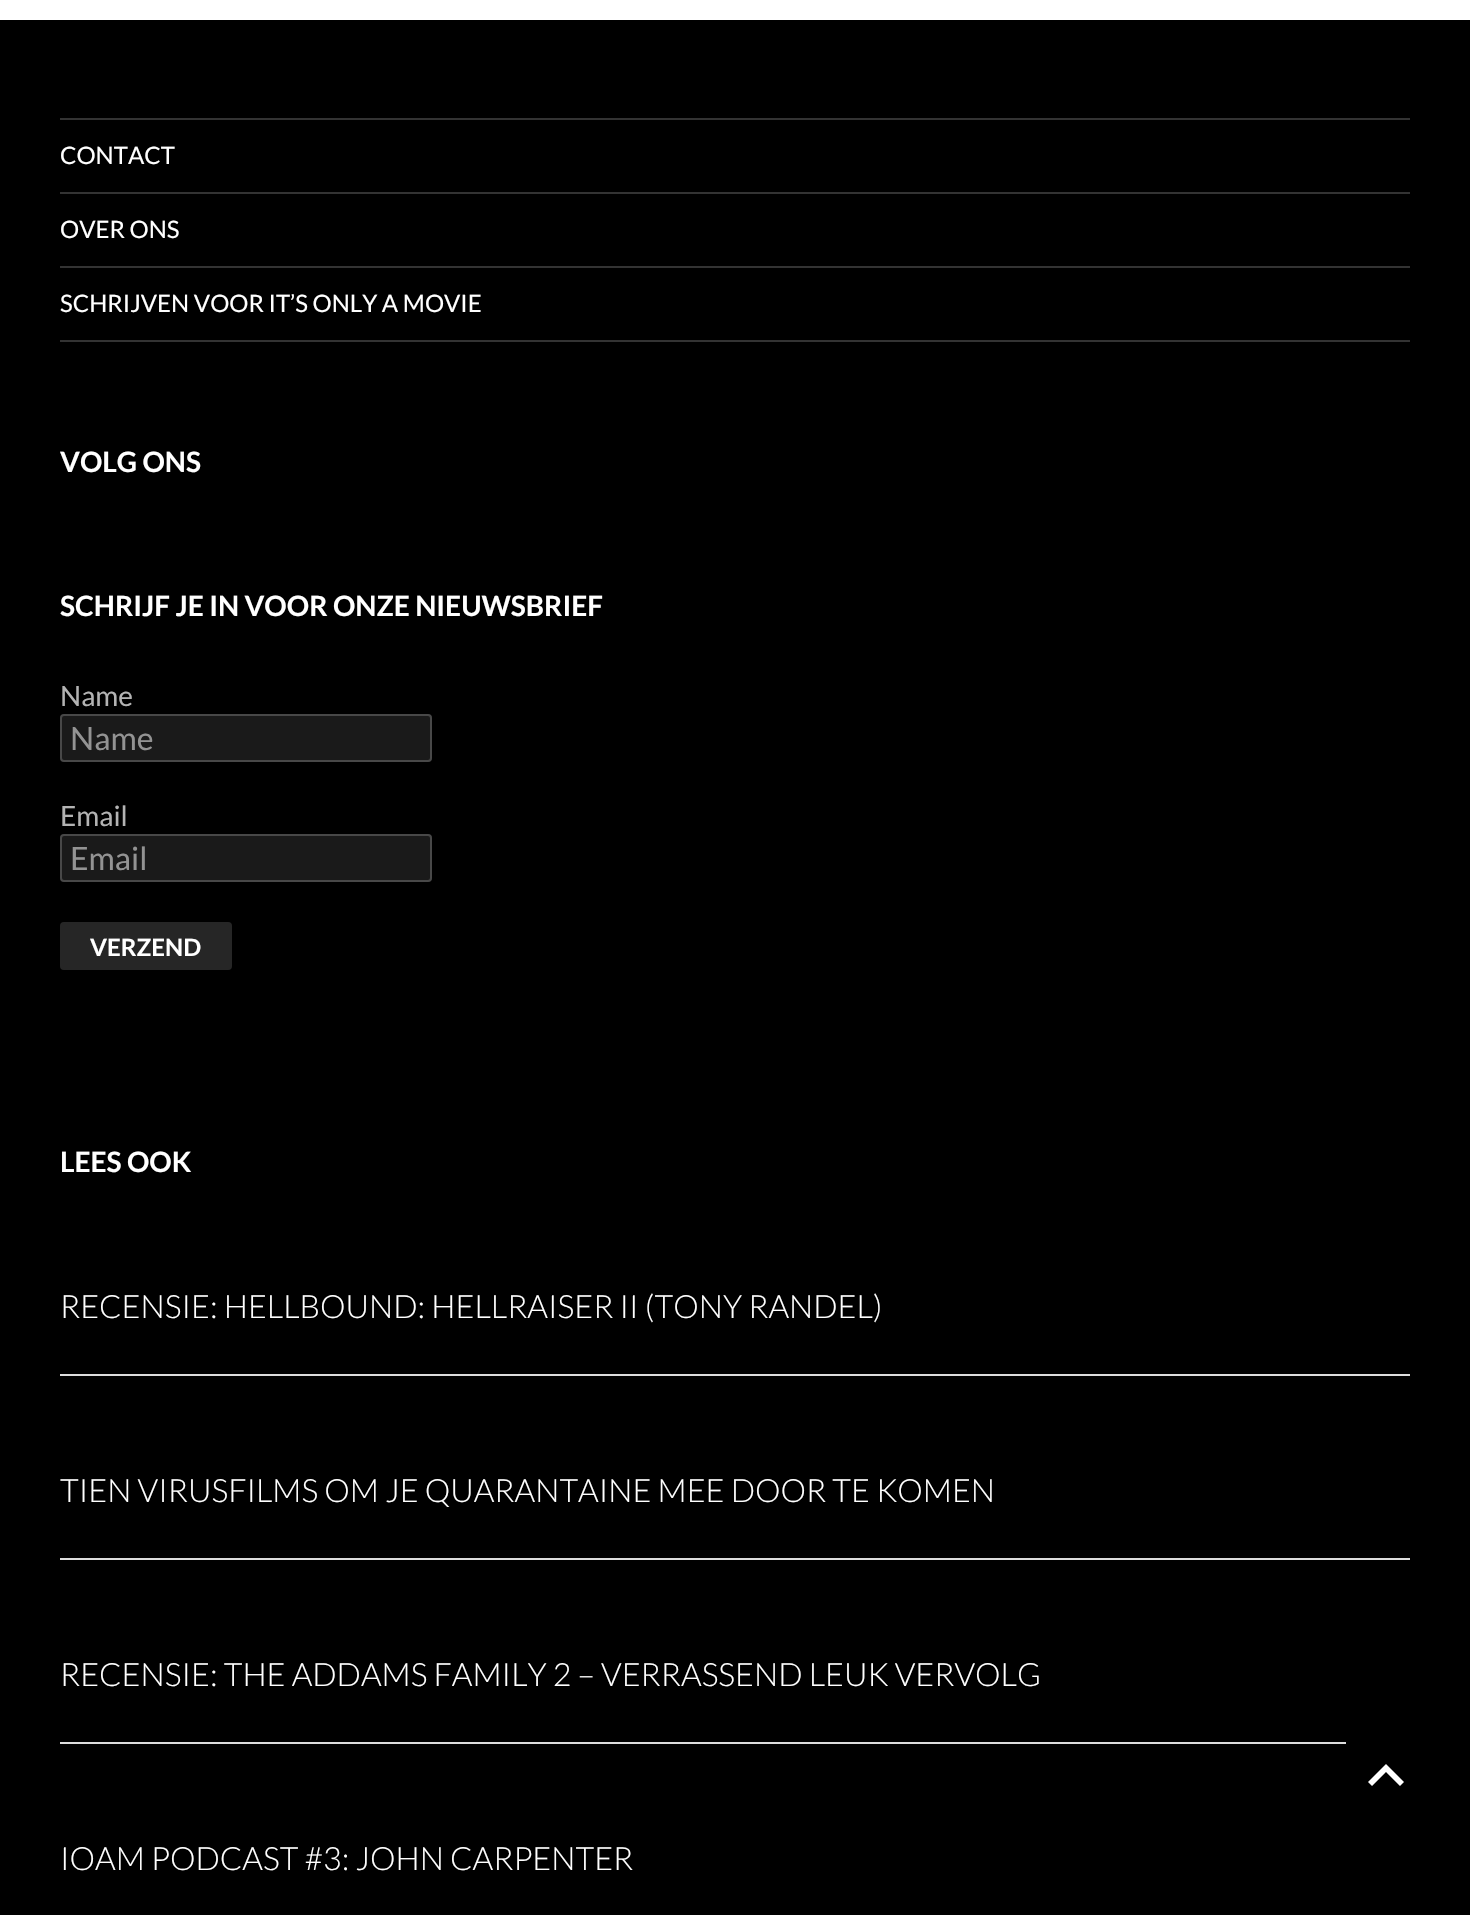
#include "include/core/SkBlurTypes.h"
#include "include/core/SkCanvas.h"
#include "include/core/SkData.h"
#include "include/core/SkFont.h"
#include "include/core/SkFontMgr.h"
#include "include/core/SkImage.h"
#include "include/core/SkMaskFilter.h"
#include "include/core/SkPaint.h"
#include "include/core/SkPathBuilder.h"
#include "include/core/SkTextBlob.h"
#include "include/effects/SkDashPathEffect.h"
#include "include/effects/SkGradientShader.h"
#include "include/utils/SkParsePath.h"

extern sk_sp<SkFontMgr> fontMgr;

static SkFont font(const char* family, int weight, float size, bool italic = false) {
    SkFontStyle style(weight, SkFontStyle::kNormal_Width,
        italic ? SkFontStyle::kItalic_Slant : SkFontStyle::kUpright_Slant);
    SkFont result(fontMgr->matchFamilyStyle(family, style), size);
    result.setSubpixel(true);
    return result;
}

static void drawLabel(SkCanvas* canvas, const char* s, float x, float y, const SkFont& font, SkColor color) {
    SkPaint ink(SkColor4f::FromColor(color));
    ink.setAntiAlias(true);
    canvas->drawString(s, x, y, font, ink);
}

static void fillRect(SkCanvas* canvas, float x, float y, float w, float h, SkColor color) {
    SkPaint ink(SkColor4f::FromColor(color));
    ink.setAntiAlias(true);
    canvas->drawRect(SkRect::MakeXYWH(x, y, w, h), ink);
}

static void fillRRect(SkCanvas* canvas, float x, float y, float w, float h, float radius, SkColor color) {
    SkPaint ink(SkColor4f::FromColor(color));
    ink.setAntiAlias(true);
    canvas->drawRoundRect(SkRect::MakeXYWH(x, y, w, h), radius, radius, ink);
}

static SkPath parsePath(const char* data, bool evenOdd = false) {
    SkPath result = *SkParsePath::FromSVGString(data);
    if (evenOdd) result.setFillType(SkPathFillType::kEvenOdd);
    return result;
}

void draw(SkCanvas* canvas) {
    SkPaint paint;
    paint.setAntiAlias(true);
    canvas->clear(0xFFFFFFFF);
    fillRect(canvas, 0, 20, 1470, 1895, 0xFF000000);
    fillRect(canvas, 60, 340, 1350, 2, 0xFF333333);
    fillRect(canvas, 60, 118, 1350, 2, 0xFF333333);
    SkFont font1 = font("Lato", 400, 24);
    drawLabel(canvas, "CONTACT", 60, 164, font1, 0xFFFFFFFF);
    fillRect(canvas, 60, 192, 1350, 2, 0xFF333333);
    drawLabel(canvas, "OVER ONS", 60, 238, font1, 0xFFFFFFFF);
    fillRect(canvas, 60, 266, 1350, 2, 0xFF333333);
    drawLabel(canvas, "SCHRIJVEN VOOR IT’S ONLY A MOVIE", 60, 312, font1, 0xFFFFFFFF);
    SkFont font2 = font("Lato", 700, 28);
    drawLabel(canvas, "VOLG ONS", 60, 472, font2, 0xFFFFFFFF);
    drawLabel(canvas, "SCHRIJF JE IN VOOR ONZE NIEUWSBRIEF", 60, 616, font2, 0xFFFFFFFF);
    SkFont font3 = font("Lato", 400, 28);
    drawLabel(canvas, "Name", 60, 706, font3, 0xFFB3B3B3);
    fillRRect(canvas, 60, 714, 372, 48, 4, 0xFF1A1A1A);
    paint.setStroke(true);
    paint.setStrokeWidth(2);
    paint.setColor(0x33FFFFFF);
    canvas->drawRoundRect(SkRect::MakeXYWH(61, 715, 370, 46), 3, 3, paint);
    SkFont font4 = font("Lato", 400, 32);
    drawLabel(canvas, "Name", 70, 750, font4, 0xFF939393);
    drawLabel(canvas, "Email", 60, 826, font3, 0xFFB3B3B3);
    fillRRect(canvas, 60, 834, 372, 48, 4, 0xFF1A1A1A);
    canvas->drawRoundRect(SkRect::MakeXYWH(61, 835, 370, 46), 3, 3, paint);
    drawLabel(canvas, "Email", 70, 870, font4, 0xFF939393);
    fillRRect(canvas, 60, 922, 172, 48, 4, 0xFF262626);
    SkFont font5 = font("Lato", 700, 24);
    drawLabel(canvas, "VERZEND", 90, 956, font5, 0xFFFFFFFF);
    drawLabel(canvas, "LEES OOK", 60, 1172, font2, 0xFFFFFFFF);
    fillRect(canvas, 60, 1374, 1350, 2, 0xFFDDDDDD);
    SkFont font6 = font("Lato", 300, 32);
    drawLabel(canvas, "RECENSIE: HELLBOUND: HELLRAISER II (TONY RANDEL)", 60, 1318, font6, 0xFFFFFFFF);
    fillRect(canvas, 60, 1558, 1350, 2, 0xFFDDDDDD);
    drawLabel(canvas, "TIEN VIRUSFILMS OM JE QUARANTAINE MEE DOOR TE KOMEN", 60, 1502, font6, 0xFFFFFFFF);
    fillRect(canvas, 60, 1742, 1286, 2, 0xFFDDDDDD);
    drawLabel(canvas, "RECENSIE: THE ADDAMS FAMILY 2 – VERRASSEND LEUK VERVOLG", 60, 1686, font6, 0xFFFFFFFF);
    drawLabel(canvas, "IOAM PODCAST #3: JOHN CARPENTER", 60, 1870, font6, 0xFFFFFFFF);
    paint.setStroke(false);
    paint.setColor(0xFFFFFFFF);
    canvas->drawPath(parsePath("M1400 1786L1386 1772L1372 1786L1368 1782L1386 1764L1404 1782Z"), paint);
}
